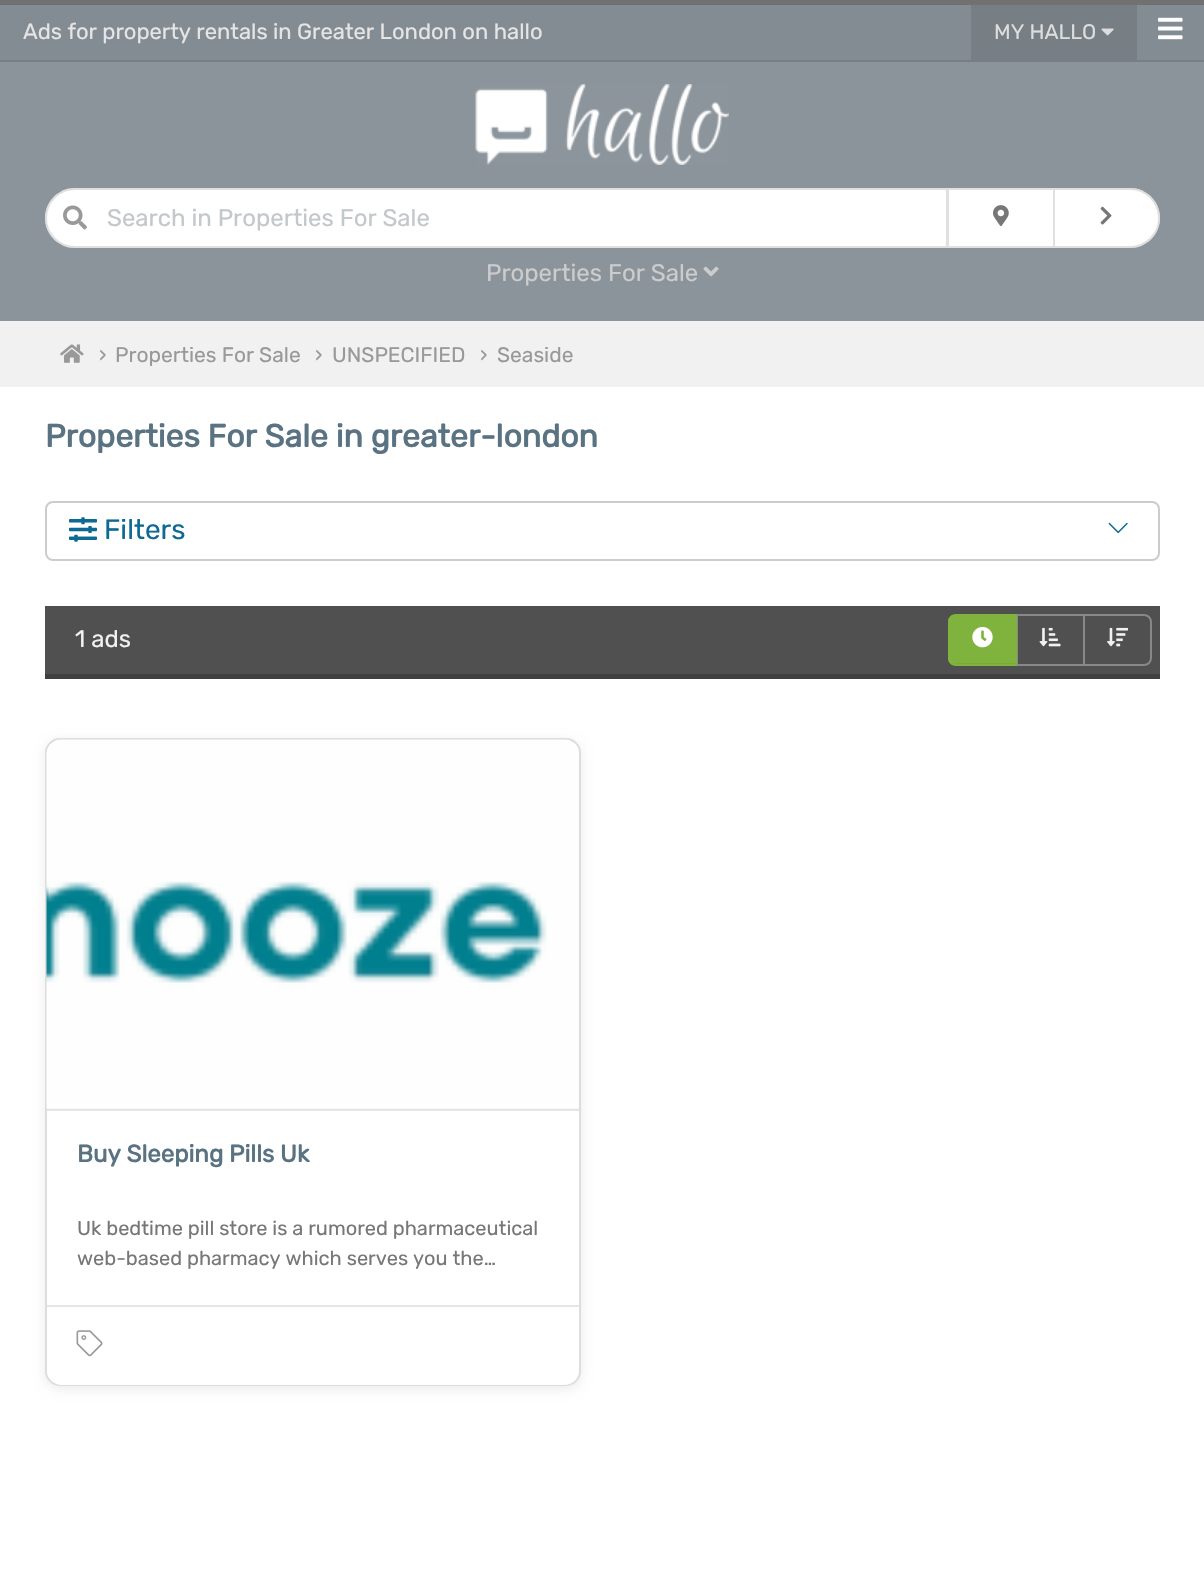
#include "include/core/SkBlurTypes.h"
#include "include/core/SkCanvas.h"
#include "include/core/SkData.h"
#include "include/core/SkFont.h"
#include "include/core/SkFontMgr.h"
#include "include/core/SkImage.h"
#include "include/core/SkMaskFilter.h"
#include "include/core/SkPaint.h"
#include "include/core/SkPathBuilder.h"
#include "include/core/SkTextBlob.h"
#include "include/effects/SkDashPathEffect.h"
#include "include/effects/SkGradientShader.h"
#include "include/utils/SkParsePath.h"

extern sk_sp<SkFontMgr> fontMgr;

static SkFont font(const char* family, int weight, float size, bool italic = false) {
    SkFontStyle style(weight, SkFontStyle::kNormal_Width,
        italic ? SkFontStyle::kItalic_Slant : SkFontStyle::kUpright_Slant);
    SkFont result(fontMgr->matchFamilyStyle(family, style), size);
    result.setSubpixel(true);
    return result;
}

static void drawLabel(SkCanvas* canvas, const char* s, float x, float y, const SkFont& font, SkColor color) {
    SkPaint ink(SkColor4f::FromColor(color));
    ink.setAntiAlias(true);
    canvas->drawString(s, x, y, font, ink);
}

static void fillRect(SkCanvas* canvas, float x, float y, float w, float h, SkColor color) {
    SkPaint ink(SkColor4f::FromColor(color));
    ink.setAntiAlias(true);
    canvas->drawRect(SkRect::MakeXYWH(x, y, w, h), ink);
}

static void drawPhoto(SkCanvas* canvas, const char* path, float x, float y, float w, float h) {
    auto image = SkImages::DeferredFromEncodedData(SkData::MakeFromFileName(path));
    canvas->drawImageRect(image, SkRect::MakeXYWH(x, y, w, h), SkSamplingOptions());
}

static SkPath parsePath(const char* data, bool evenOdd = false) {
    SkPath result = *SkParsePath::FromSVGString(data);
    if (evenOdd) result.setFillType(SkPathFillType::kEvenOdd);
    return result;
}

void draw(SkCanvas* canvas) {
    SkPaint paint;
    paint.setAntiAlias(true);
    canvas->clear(0xFFFFFFFF);
    fillRect(canvas, 0, 5, 1204, 55, 0xFF848C93);
    fillRect(canvas, 0, 0, 1204, 5, 0xFF717171);
    fillRect(canvas, 0, 60, 1204, 2, 0xFF777E84);
    SkFont font1 = font("Rubik", 300, 22);
    drawLabel(canvas, "Ads for property rentals in Greater London on hallo", 23, 39, font1, 0xFFE5E5E5);
    fillRect(canvas, 971, 5, 166, 55, 0xFF777E84);
    SkFont font2 = font("Rubik", 300, 21);
    drawLabel(canvas, "MY HALLO", 994, 39, font2, 0xFFDDDDDD);
    drawPhoto(canvas, "assets/img1.png", 1101, 28, 13, 8);
    drawPhoto(canvas, "assets/img2.png", 1158, 17, 25, 23);
    fillRect(canvas, 0, 62, 1204, 259, 0xFF8B949B);
    drawPhoto(canvas, "assets/img3.png", 475, 84, 254, 81);
    paint.setColor(0xFFFFFFFF);
    canvas->drawPath(parsePath("M75 188H948V248H75C58.5 248 45 234.5 45 218C45 201.5 58.5 188 75 188Z"), paint);
    paint.setStroke(true);
    paint.setStrokeWidth(2);
    paint.setColor(0x80C0C0C0);
    canvas->drawPath(parsePath("M75 189H947V247H75C59 247 46 234 46 218C46 202 59 189 75 189Z"), paint);
    drawPhoto(canvas, "assets/img4.png", 63, 205, 24, 25);
    SkFont font3 = font("Rubik", 300, 24);
    drawLabel(canvas, "Search in Properties For Sale", 107, 226, font3, 0xFFC3C8CB);
    paint.setStroke(false);
    paint.setColor(0xFFFFFFFF);
    canvas->drawPath(parsePath("M1053 188H1130C1146.5 188 1160 201.5 1160 218C1160 234.5 1146.5 248 1130 248H1053Z"), paint);
    paint.setStroke(true);
    paint.setColor(0x80C0C0C0);
    canvas->drawPath(parsePath("M1054 189H1130C1146 189 1159 202 1159 218C1159 234 1146 247 1130 247H1054Z"), paint);
    paint.setStroke(false);
    paint.setColor(0xFFFFFFFF);
    canvas->drawRect(SkRect::MakeXYWH(948, 189, 106, 58), paint);
    paint.setStroke(true);
    paint.setColor(0xFFE0E0E0);
    canvas->drawRect(SkRect::MakeXYWH(948, 189, 106, 58), paint);
    drawPhoto(canvas, "assets/img5.png", 993, 205, 16, 22);
    drawPhoto(canvas, "assets/img6.png", 1100, 206, 12, 19);
    drawLabel(canvas, "Properties For Sale", 486, 281, font3, 0xFFCCCCCC);
    drawPhoto(canvas, "assets/img7.png", 703, 266, 16, 11);
    fillRect(canvas, 0, 321, 1204, 66, 0xFFF1F1F1);
    drawPhoto(canvas, "assets/img8.png", 60, 344, 24, 19);
    drawLabel(canvas, "›", 99, 362, font2, 0xFF999999);
    drawLabel(canvas, "Properties For Sale", 115, 362, font2, 0xFF999999);
    drawLabel(canvas, "›", 315, 362, font2, 0xFF999999);
    drawLabel(canvas, "UNSPECIFIED", 332, 362, font2, 0xFF999999);
    drawLabel(canvas, "›", 480, 362, font2, 0xFF999999);
    drawLabel(canvas, "Seaside", 497, 362, font2, 0xFF999999);
    SkFont font4 = font("Rubik", 700, 32);
    drawLabel(canvas, "Properties For Sale in greater-london", 45, 447, font4, 0xFF5A7382);
    paint.setColor(0xFFCCCCCC);
    canvas->drawRoundRect(SkRect::MakeXYWH(46, 502, 1113, 58), 7, 7, paint);
    drawPhoto(canvas, "assets/img9.png", 69, 517, 28, 25);
    SkFont font5 = font("Rubik", 300, 28);
    drawLabel(canvas, "Filters", 104, 539, font5, 0xFF0E6993);
    drawPhoto(canvas, "assets/img10.png", 1108, 522, 20, 12);
    fillRect(canvas, 45, 606, 1115, 68, 0xFF505050);
    fillRect(canvas, 45, 674, 1115, 5, 0xFF404040);
    drawLabel(canvas, "1 ads", 75, 647, font3, 0xFFF1F1F1);
    canvas->save();
    canvas->clipPath(parsePath("M956 614H1017V666H956C951.5 666 948 662.5 948 658V622C948 617.5 951.5 614 956 614Z"), true);
    paint.setStroke(false);
    {
        const SkColor colors[] = {0xFF7FB33E, 0xFF669128};
        const float stops[] = {0.96f, 1};
        const SkPoint ends[] = {{983, 615}, {983, 665}};
        paint.setShader(SkGradientShader::MakeLinear(ends, colors, stops, 2, SkTileMode::kClamp));
        paint.setAlpha(255);
    }
    canvas->drawRect(SkRect::MakeXYWH(948, 615, 67, 50), paint);
    canvas->restore();
    paint.setStroke(true);
    paint.setShader(nullptr);
    paint.setColor(0xFF888888);
    canvas->drawRect(SkRect::MakeXYWH(1017, 615, 67, 50), paint);
    paint.setColor(0xFF7FB33E);
    canvas->drawPath(parsePath("M956 615H1016V665H956C952 665 949 662 949 658V622C949 618 952 615 956 615Z"), paint);
    drawPhoto(canvas, "assets/img11.png", 972, 627, 21, 21);
    drawPhoto(canvas, "assets/img12.png", 1039, 627, 22, 20);
    paint.setStroke(false);
    paint.setColor(0xFF505050);
    canvas->drawPath(parsePath("M1084 615H1144C1148 615 1151 618 1151 622V658C1151 662 1148 665 1144 665H1084Z"), paint);
    paint.setStroke(true);
    paint.setColor(0xFF888888);
    canvas->drawPath(parsePath("M1084 615H1144C1148 615 1151 618 1151 622V658C1151 662 1148 665 1144 665H1084Z"), paint);
    drawPhoto(canvas, "assets/img13.png", 1107, 627, 22, 20);
    paint.setStroke(false);
    paint.setColor(0x14000000);
    paint.setMaskFilter(SkMaskFilter::MakeBlur(kNormal_SkBlurStyle, 6));
    canvas->drawRoundRect(SkRect::MakeXYWH(45, 741, 536, 648), 15, 15, paint);
    paint.setMaskFilter(nullptr);
    paint.setColor(0xFFFFFFFF);
    canvas->drawRoundRect(SkRect::MakeXYWH(46, 739, 534, 646), 14, 14, paint);
    paint.setStroke(true);
    paint.setColor(0xFFDDDDDD);
    canvas->drawRoundRect(SkRect::MakeXYWH(46, 739, 534, 646), 14, 14, paint);
    paint.setStroke(false);
    paint.setColor(0x33C0C0C0);
    canvas->drawPath(parsePath("M62 740H564C572.5 740 579 746.5 579 755V1110H47V755C47 746.5 53.5 740 62 740Z"), paint);
    fillRect(canvas, 47, 1109, 532, 2, 0xFFE5E5E5);
    drawPhoto(canvas, "assets/img14.png", 46, 739, 533, 370);
    SkFont font6 = font("Rubik", 700, 24);
    drawLabel(canvas, "Buy Sleeping Pills Uk", 77, 1162, font6, 0xFF5A7382);
    SkFont font7 = font("Rubik", 300, 20);
    drawLabel(canvas, "Uk bedtime pill store is a rumored pharmaceutical", 77, 1235, font7, 0xFF777777);
    drawLabel(canvas, "web-based pharmacy which serves you the…", 77, 1265, font7, 0xFF777777);
    paint.setColor(0xFFFFFFFF);
    canvas->drawPath(parsePath("M47 1305H579V1370C579 1378.5 572.5 1385 564 1385H62C53.5 1385 47 1378.5 47 1370Z"), paint);
    fillRect(canvas, 47, 1305, 532, 2, 0xFFE5E5E5);
    drawPhoto(canvas, "assets/img15.png", 76, 1330, 27, 27);
}
